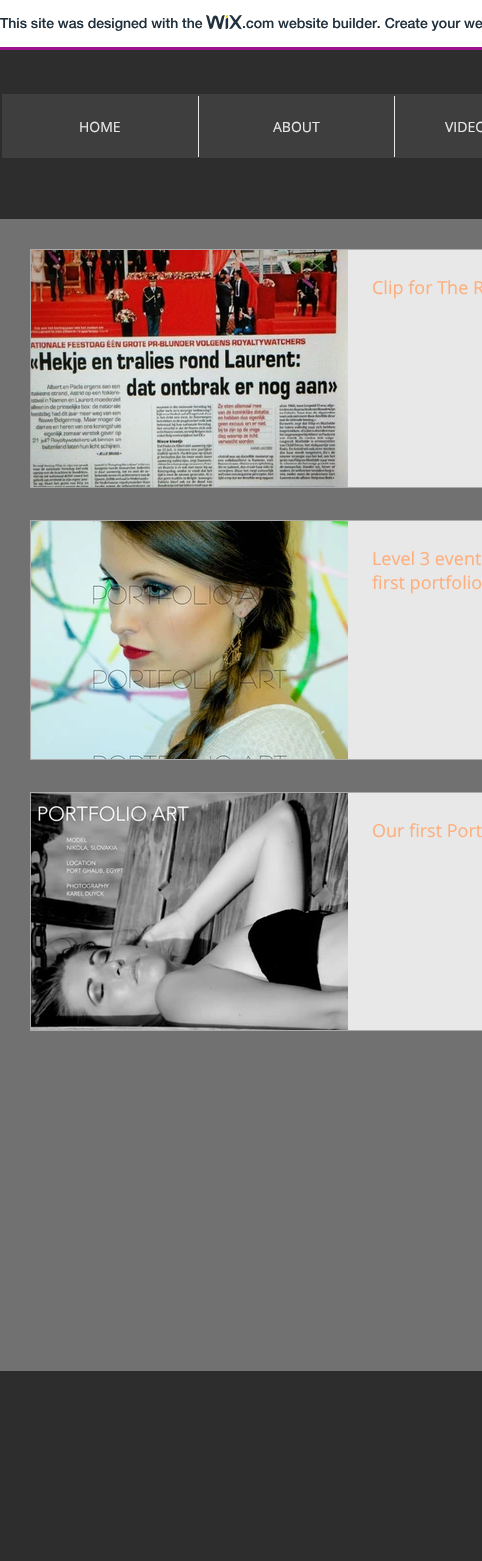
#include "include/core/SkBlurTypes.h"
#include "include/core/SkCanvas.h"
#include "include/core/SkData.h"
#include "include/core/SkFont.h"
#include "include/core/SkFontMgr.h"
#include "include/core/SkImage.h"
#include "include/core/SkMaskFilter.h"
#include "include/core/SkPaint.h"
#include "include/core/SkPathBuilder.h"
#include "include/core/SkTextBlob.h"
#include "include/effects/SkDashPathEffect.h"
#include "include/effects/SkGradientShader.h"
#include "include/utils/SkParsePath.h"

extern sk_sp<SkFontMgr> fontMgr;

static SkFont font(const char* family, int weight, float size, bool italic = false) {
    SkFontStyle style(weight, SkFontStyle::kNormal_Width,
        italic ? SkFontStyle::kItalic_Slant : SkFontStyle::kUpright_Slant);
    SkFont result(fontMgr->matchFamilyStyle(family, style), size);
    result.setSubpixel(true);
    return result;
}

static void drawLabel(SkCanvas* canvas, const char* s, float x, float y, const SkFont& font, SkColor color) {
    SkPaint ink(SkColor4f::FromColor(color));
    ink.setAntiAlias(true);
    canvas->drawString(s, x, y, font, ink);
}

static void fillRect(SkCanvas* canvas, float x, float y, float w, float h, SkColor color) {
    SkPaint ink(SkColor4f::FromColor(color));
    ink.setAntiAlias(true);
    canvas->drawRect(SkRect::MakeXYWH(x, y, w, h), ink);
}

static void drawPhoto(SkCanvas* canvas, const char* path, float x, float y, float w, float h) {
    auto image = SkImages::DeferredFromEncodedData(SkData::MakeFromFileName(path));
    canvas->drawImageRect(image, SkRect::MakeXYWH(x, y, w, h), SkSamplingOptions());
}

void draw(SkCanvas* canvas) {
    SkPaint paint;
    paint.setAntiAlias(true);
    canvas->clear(0xFFFFFFFF);
    fillRect(canvas, 0, 47, 482, 3, 0xFFA0138E);
    SkFont font1 = font("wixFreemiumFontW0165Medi", 500, 14);
    drawLabel(canvas, "This site was designed with the", 0, 28, font1, 0xFF20303C);
    drawPhoto(canvas, "assets/img1.png", 206, 15, 36, 15);
    drawLabel(canvas, ".com website builder. Create your we", 242, 28, font1, 0xFF20303C);
    fillRect(canvas, 0, 50, 482, 1511, 0xFF2D2D2D);
    fillRect(canvas, 2, 94, 480, 64, 0xFF3E3E3E);
    SkFont font2 = font("Open Sans", 400, 14);
    drawLabel(canvas, "HOME", 79, 132, font2, 0xFFE8E8E8);
    fillRect(canvas, 198, 96, 1, 61, 0xFFE8E8E8);
    drawLabel(canvas, "ABOUT", 273, 132, font2, 0xFFE8E8E8);
    fillRect(canvas, 394, 96, 1, 61, 0xFFE8E8E8);
    drawLabel(canvas, "VIDEO", 445, 132, font2, 0xFFE8E8E8);
    fillRect(canvas, 0, 219, 482, 1152, 0xFF717171);
    paint.setStroke(true);
    paint.setStrokeWidth(1);
    paint.setColor(0xFFABABAB);
    canvas->drawRect(SkRect::MakeXYWH(30.5f, 249.5f, 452, 238), paint);
    drawPhoto(canvas, "assets/img2.png", 31, 250, 317, 237);
    fillRect(canvas, 348, 250, 134, 237, 0xFFE8E8E8);
    SkFont font3 = font("Open Sans", 400, 18);
    drawLabel(canvas, "Clip for The R", 372, 294, font3, 0xFFFDAF7E);
    canvas->drawRect(SkRect::MakeXYWH(30.5f, 520.5f, 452, 239), paint);
    drawPhoto(canvas, "assets/img3.png", 31, 521, 317, 238);
    fillRect(canvas, 348, 521, 134, 238, 0xFFE8E8E8);
    drawLabel(canvas, "Level 3 event", 372, 565, font3, 0xFFFDAF7E);
    drawLabel(canvas, "first portfolio", 372, 589, font3, 0xFFFDAF7E);
    canvas->drawRect(SkRect::MakeXYWH(30.5f, 792.5f, 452, 238), paint);
    drawPhoto(canvas, "assets/img4.png", 31, 793, 317, 237);
    fillRect(canvas, 348, 793, 134, 237, 0xFFE8E8E8);
    drawLabel(canvas, "Our first Port", 372, 837, font3, 0xFFFDAF7E);
}
